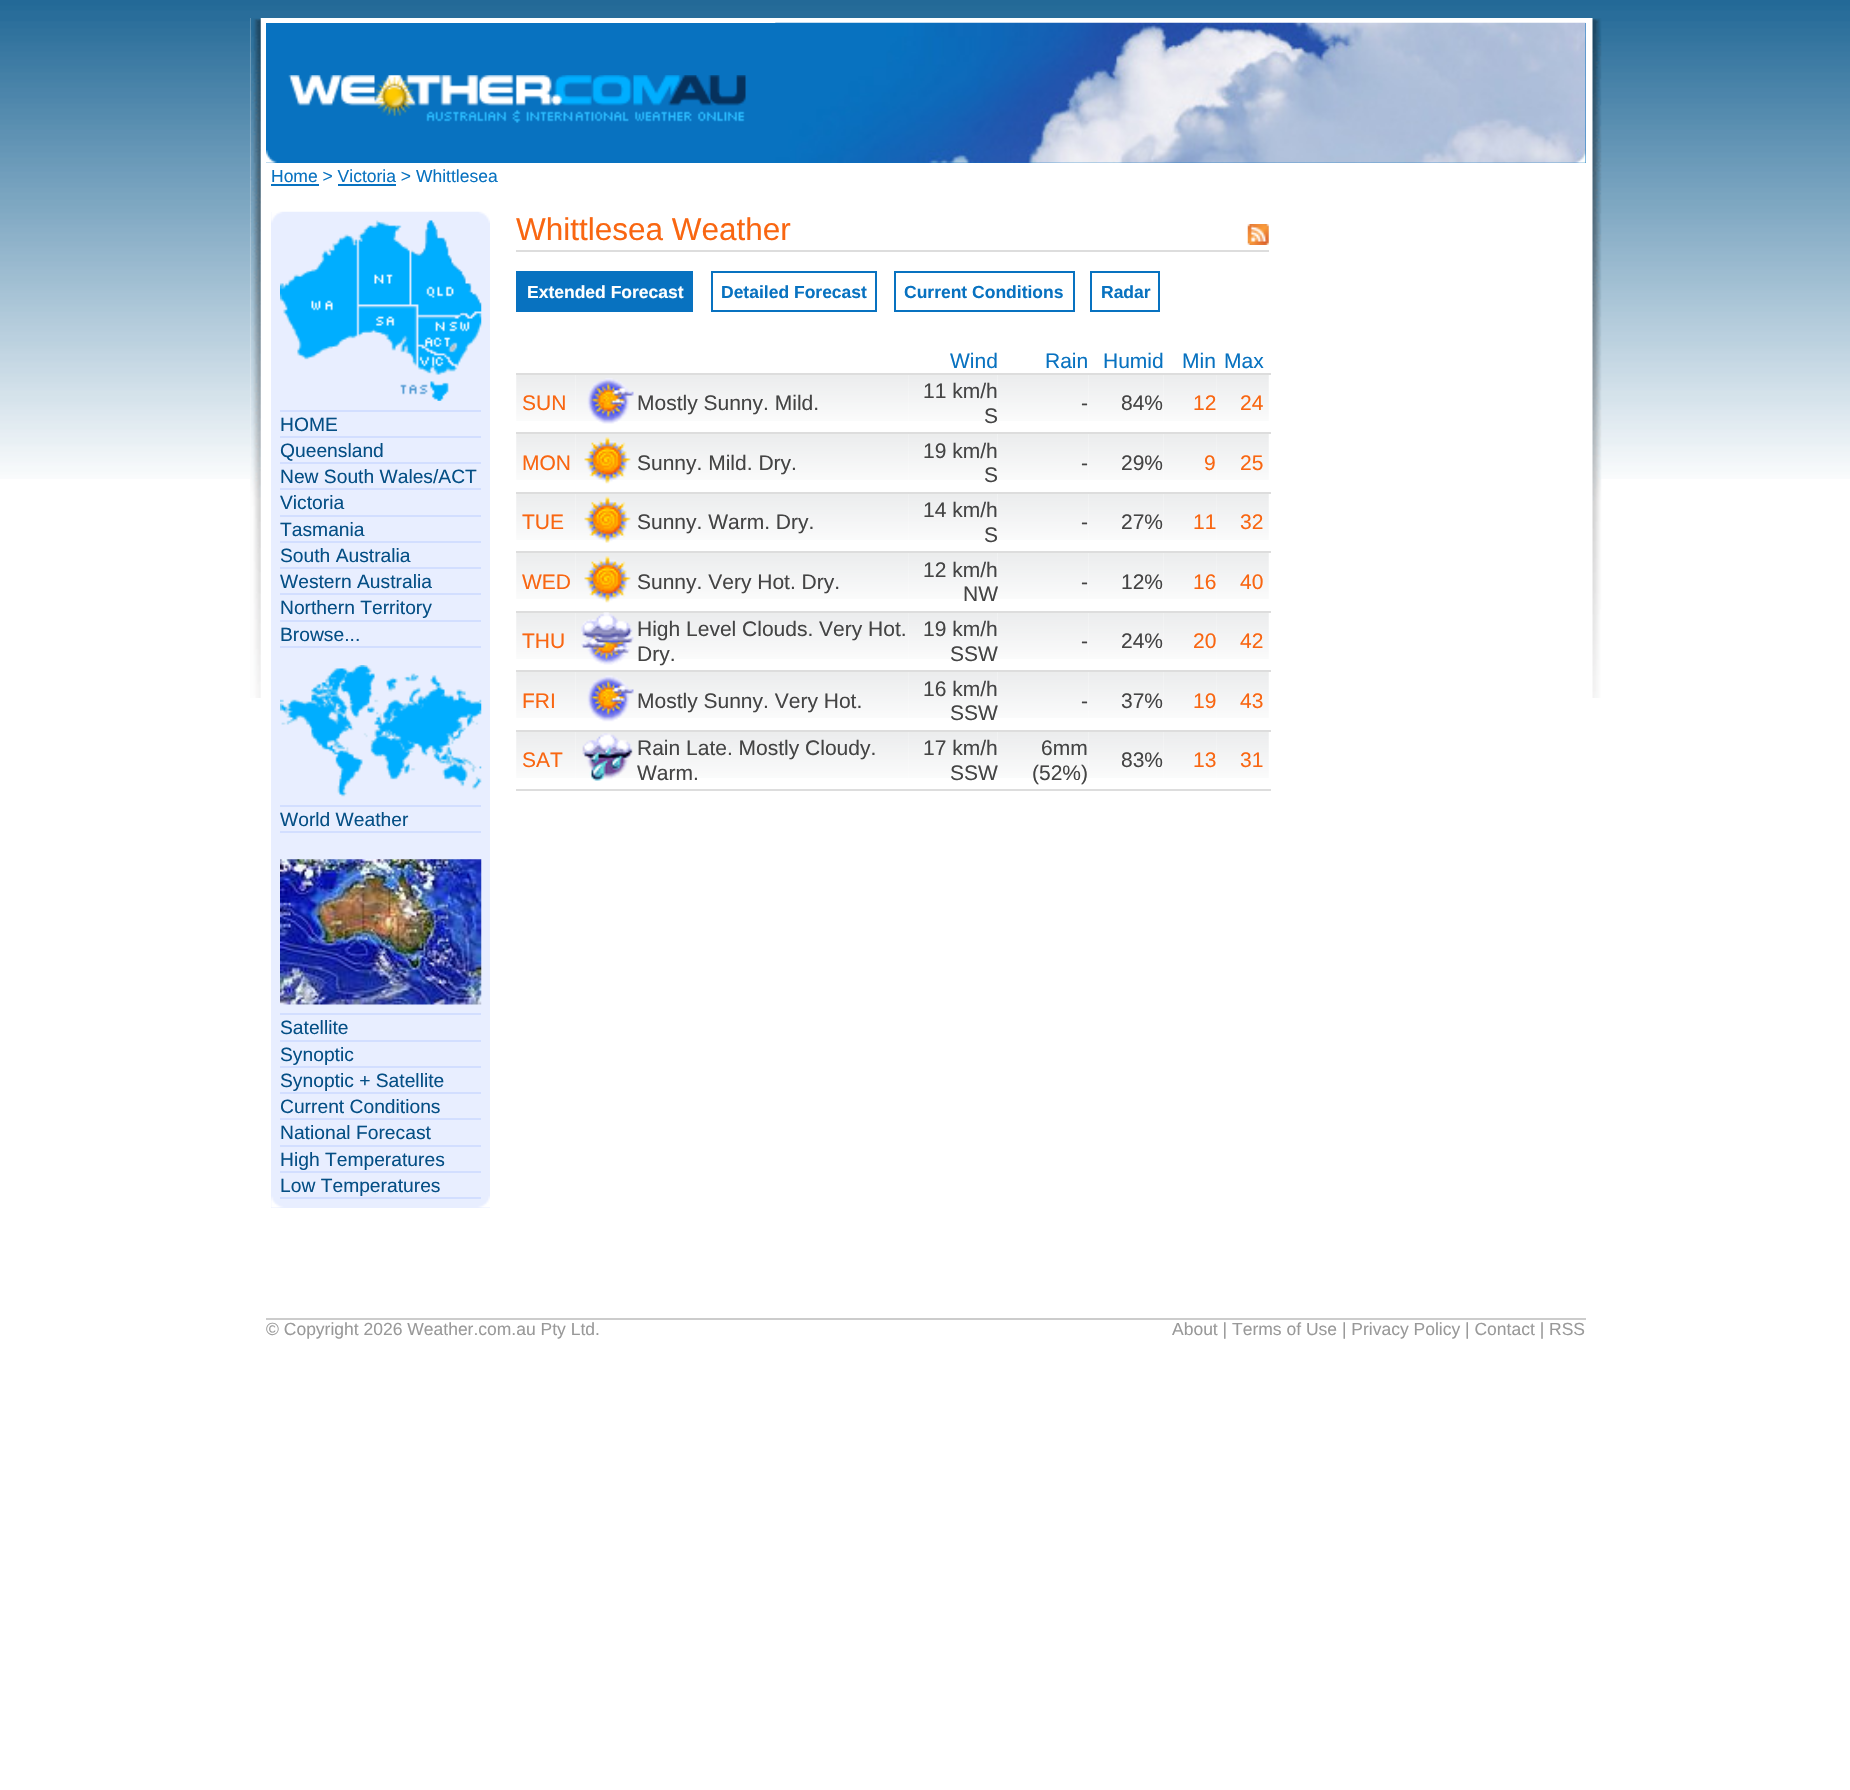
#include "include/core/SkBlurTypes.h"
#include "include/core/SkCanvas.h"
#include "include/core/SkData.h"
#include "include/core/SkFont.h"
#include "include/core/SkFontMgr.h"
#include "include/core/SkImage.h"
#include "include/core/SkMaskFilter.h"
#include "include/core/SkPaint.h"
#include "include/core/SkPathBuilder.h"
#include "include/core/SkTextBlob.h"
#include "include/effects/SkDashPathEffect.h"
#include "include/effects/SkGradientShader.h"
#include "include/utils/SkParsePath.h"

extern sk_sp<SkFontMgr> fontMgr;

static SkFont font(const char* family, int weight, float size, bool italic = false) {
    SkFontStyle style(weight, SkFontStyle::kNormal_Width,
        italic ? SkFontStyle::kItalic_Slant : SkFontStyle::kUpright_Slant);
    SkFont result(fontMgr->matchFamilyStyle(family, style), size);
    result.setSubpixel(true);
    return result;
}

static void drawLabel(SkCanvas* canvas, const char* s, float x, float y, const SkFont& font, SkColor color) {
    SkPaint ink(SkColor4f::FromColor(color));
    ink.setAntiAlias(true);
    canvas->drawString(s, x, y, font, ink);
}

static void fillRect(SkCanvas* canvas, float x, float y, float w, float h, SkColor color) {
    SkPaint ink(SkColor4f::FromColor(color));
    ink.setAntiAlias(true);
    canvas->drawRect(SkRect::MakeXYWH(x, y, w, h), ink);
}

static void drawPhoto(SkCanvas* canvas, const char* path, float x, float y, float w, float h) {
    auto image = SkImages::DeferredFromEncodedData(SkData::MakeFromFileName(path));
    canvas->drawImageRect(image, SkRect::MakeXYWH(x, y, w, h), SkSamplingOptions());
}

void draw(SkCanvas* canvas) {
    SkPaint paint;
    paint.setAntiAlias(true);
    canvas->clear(0xFFFFFFFF);
    drawPhoto(canvas, "assets/img1.png", 0, 0, 1850, 479);
    fillRect(canvas, 250, 18, 1351, 461, 0xFFFFFFFF);
    drawPhoto(canvas, "assets/img2.png", 250, 18, 11, 680);
    drawPhoto(canvas, "assets/img3.png", 1592, 18, 10, 680);
    fillRect(canvas, 266, 23, 1320, 140, 0xFF0872C0);
    drawPhoto(canvas, "assets/img4.png", 775, 22, 811, 141);
    drawPhoto(canvas, "assets/img5.png", 266, 150, 11, 13);
    drawPhoto(canvas, "assets/img6.png", 288, 75, 458, 48);
    SkFont font1 = font("Liberation Sans", 400, 17.5f);
    drawLabel(canvas, "Home > Victoria > Whittlesea", 271, 182, font1, 0xFF0872C0);
    fillRect(canvas, 271, 184, 48, 2, 0xFF0872C0);
    fillRect(canvas, 338, 184, 58, 2, 0xFF0872C0);
    fillRect(canvas, 271, 212, 219, 996, 0xFFE8EEFF);
    drawPhoto(canvas, "assets/img7.png", 271, 211, 219, 12);
    drawPhoto(canvas, "assets/img8.png", 271, 1196, 219, 12);
    drawPhoto(canvas, "assets/img9.png", 280, 220, 202, 181);
    fillRect(canvas, 280, 410, 201, 2, 0xFFD2DEFF);
    fillRect(canvas, 280, 436, 201, 2, 0xFFD2DEFF);
    SkFont font2 = font("Liberation Sans", 400, 19.25f);
    drawLabel(canvas, "HOME", 280, 431, font2, 0xFF054F85);
    fillRect(canvas, 280, 462, 201, 2, 0xFFD2DEFF);
    drawLabel(canvas, "Queensland", 280, 457, font2, 0xFF054F85);
    fillRect(canvas, 280, 488, 201, 2, 0xFFD2DEFF);
    drawLabel(canvas, "New South Wales/ACT", 280, 483, font2, 0xFF054F85);
    fillRect(canvas, 280, 515, 201, 2, 0xFFD2DEFF);
    drawLabel(canvas, "Victoria", 280, 509, font2, 0xFF054F85);
    fillRect(canvas, 280, 541, 201, 2, 0xFFD2DEFF);
    drawLabel(canvas, "Tasmania", 280, 536, font2, 0xFF054F85);
    fillRect(canvas, 280, 567, 201, 2, 0xFFD2DEFF);
    drawLabel(canvas, "South Australia", 280, 562, font2, 0xFF054F85);
    fillRect(canvas, 280, 593, 201, 2, 0xFFD2DEFF);
    drawLabel(canvas, "Western Australia", 280, 588, font2, 0xFF054F85);
    fillRect(canvas, 280, 620, 201, 2, 0xFFD2DEFF);
    drawLabel(canvas, "Northern Territory", 280, 614, font2, 0xFF054F85);
    fillRect(canvas, 280, 646, 201, 2, 0xFFD2DEFF);
    drawLabel(canvas, "Browse...", 280, 641, font2, 0xFF054F85);
    drawPhoto(canvas, "assets/img10.png", 280, 665, 202, 132);
    fillRect(canvas, 280, 805, 201, 2, 0xFFD2DEFF);
    fillRect(canvas, 280, 831, 201, 2, 0xFFD2DEFF);
    drawLabel(canvas, "World Weather", 280, 826, font2, 0xFF054F85);
    drawPhoto(canvas, "assets/img11.png", 280, 859, 202, 146);
    fillRect(canvas, 280, 1013, 201, 2, 0xFFD2DEFF);
    fillRect(canvas, 280, 1040, 201, 2, 0xFFD2DEFF);
    drawLabel(canvas, "Satellite", 280, 1034, font2, 0xFF054F85);
    fillRect(canvas, 280, 1066, 201, 2, 0xFFD2DEFF);
    drawLabel(canvas, "Synoptic", 280, 1061, font2, 0xFF054F85);
    fillRect(canvas, 280, 1092, 201, 2, 0xFFD2DEFF);
    drawLabel(canvas, "Synoptic + Satellite", 280, 1087, font2, 0xFF054F85);
    fillRect(canvas, 280, 1118, 201, 2, 0xFFD2DEFF);
    drawLabel(canvas, "Current Conditions", 280, 1113, font2, 0xFF054F85);
    fillRect(canvas, 280, 1145, 201, 2, 0xFFD2DEFF);
    drawLabel(canvas, "National Forecast", 280, 1139, font2, 0xFF054F85);
    fillRect(canvas, 280, 1171, 201, 2, 0xFFD2DEFF);
    drawLabel(canvas, "High Temperatures", 280, 1166, font2, 0xFF054F85);
    fillRect(canvas, 280, 1197, 201, 2, 0xFFD2DEFF);
    drawLabel(canvas, "Low Temperatures", 280, 1192, font2, 0xFF054F85);
    fillRect(canvas, 516, 250, 753, 2, 0xFFDDDDDD);
    SkFont font3 = font("Liberation Sans", 400, 31.5f);
    drawLabel(canvas, "Whittlesea Weather", 516, 240, font3, 0xFFF96611);
    drawPhoto(canvas, "assets/img12.png", 1247, 224, 22, 21);
    fillRect(canvas, 516, 271, 177, 41, 0xFF0872C0);
    SkFont font4 = font("Liberation Sans", 700, 17.5f);
    drawLabel(canvas, "Extended Forecast", 527, 298, font4, 0xFFFFFFFF);
    paint.setStroke(true);
    paint.setStrokeWidth(2);
    paint.setColor(0xFF0872C0);
    canvas->drawRect(SkRect::MakeXYWH(712, 272, 164, 39), paint);
    drawLabel(canvas, "Detailed Forecast", 721, 298, font4, 0xFF0872C0);
    canvas->drawRect(SkRect::MakeXYWH(895, 272, 179, 39), paint);
    drawLabel(canvas, "Current Conditions", 904, 298, font4, 0xFF0872C0);
    canvas->drawRect(SkRect::MakeXYWH(1091, 272, 68, 39), paint);
    drawLabel(canvas, "Radar", 1101, 298, font4, 0xFF0872C0);
    SkFont font5 = font("Liberation Sans", 400, 21);
    drawLabel(canvas, "Wind", 950, 368, font5, 0xFF0872C0);
    drawLabel(canvas, "Rain", 1045, 368, font5, 0xFF0872C0);
    drawLabel(canvas, "Humid", 1103, 368, font5, 0xFF0872C0);
    drawLabel(canvas, "Min", 1182, 368, font5, 0xFF0872C0);
    fillRect(canvas, 516, 373, 755, 2, 0xFFDDDDDD);
    drawLabel(canvas, "Max", 1224, 368, font5, 0xFF0872C0);
    drawPhoto(canvas, "assets/img13.png", 516, 375, 60, 46);
    drawLabel(canvas, "SUN", 522, 410, font5, 0xFFF96611);
    drawPhoto(canvas, "assets/img14.png", 576, 375, 61, 46);
    drawPhoto(canvas, "assets/img15.png", 587, 378, 47, 46);
    drawPhoto(canvas, "assets/img16.png", 637, 375, 272, 46);
    drawLabel(canvas, "Mostly Sunny. Mild.", 637, 410, font5, 0xFF444444);
    drawPhoto(canvas, "assets/img17.png", 908, 375, 90, 46);
    drawLabel(canvas, "11 km/h", 923, 398, font5, 0xFF444444);
    drawLabel(canvas, "S", 984, 423, font5, 0xFF444444);
    drawPhoto(canvas, "assets/img18.png", 997, 375, 92, 46);
    drawLabel(canvas, "-", 1081, 410, font5, 0xFF444444);
    drawPhoto(canvas, "assets/img19.png", 1088, 375, 76, 46);
    drawLabel(canvas, "84%", 1121, 410, font5, 0xFF444444);
    drawPhoto(canvas, "assets/img20.png", 1164, 375, 53, 46);
    drawLabel(canvas, "12", 1193, 410, font5, 0xFFF96611);
    drawPhoto(canvas, "assets/img21.png", 1216, 375, 53, 46);
    fillRect(canvas, 516, 432, 755, 2, 0xFFDDDDDD);
    drawLabel(canvas, "24", 1240, 410, font5, 0xFFF96611);
    drawPhoto(canvas, "assets/img22.png", 516, 434, 60, 46);
    drawLabel(canvas, "MON", 522, 470, font5, 0xFFF96611);
    drawPhoto(canvas, "assets/img23.png", 576, 434, 61, 46);
    drawPhoto(canvas, "assets/img24.png", 584, 437, 47, 47);
    drawPhoto(canvas, "assets/img25.png", 637, 434, 272, 46);
    drawLabel(canvas, "Sunny. Mild. Dry.", 637, 470, font5, 0xFF444444);
    drawPhoto(canvas, "assets/img26.png", 908, 434, 90, 46);
    drawLabel(canvas, "19 km/h", 923, 458, font5, 0xFF444444);
    drawLabel(canvas, "S", 984, 482, font5, 0xFF444444);
    drawPhoto(canvas, "assets/img27.png", 997, 434, 92, 46);
    drawLabel(canvas, "-", 1081, 470, font5, 0xFF444444);
    drawPhoto(canvas, "assets/img28.png", 1088, 434, 76, 46);
    drawLabel(canvas, "29%", 1121, 470, font5, 0xFF444444);
    drawPhoto(canvas, "assets/img29.png", 1164, 434, 53, 46);
    drawLabel(canvas, "9", 1204, 470, font5, 0xFFF96611);
    drawPhoto(canvas, "assets/img30.png", 1216, 434, 53, 46);
    fillRect(canvas, 516, 492, 755, 2, 0xFFDDDDDD);
    drawLabel(canvas, "25", 1240, 470, font5, 0xFFF96611);
    drawPhoto(canvas, "assets/img13.png", 516, 494, 60, 46);
    drawLabel(canvas, "TUE", 522, 529, font5, 0xFFF96611);
    drawPhoto(canvas, "assets/img14.png", 576, 494, 61, 46);
    drawPhoto(canvas, "assets/img31.png", 584, 496, 47, 47);
    drawPhoto(canvas, "assets/img16.png", 637, 494, 272, 46);
    drawLabel(canvas, "Sunny. Warm. Dry.", 637, 529, font5, 0xFF444444);
    drawPhoto(canvas, "assets/img17.png", 908, 494, 90, 46);
    drawLabel(canvas, "14 km/h", 923, 517, font5, 0xFF444444);
    drawLabel(canvas, "S", 984, 542, font5, 0xFF444444);
    drawPhoto(canvas, "assets/img18.png", 997, 494, 92, 46);
    drawLabel(canvas, "-", 1081, 529, font5, 0xFF444444);
    drawPhoto(canvas, "assets/img19.png", 1088, 494, 76, 46);
    drawLabel(canvas, "27%", 1121, 529, font5, 0xFF444444);
    drawPhoto(canvas, "assets/img20.png", 1164, 494, 53, 46);
    drawLabel(canvas, "11", 1193, 529, font5, 0xFFF96611);
    drawPhoto(canvas, "assets/img21.png", 1216, 494, 53, 46);
    fillRect(canvas, 516, 551, 755, 2, 0xFFDDDDDD);
    drawLabel(canvas, "32", 1240, 529, font5, 0xFFF96611);
    drawPhoto(canvas, "assets/img22.png", 516, 553, 60, 46);
    drawLabel(canvas, "WED", 522, 589, font5, 0xFFF96611);
    drawPhoto(canvas, "assets/img23.png", 576, 553, 61, 46);
    drawPhoto(canvas, "assets/img24.png", 584, 556, 47, 47);
    drawPhoto(canvas, "assets/img25.png", 637, 553, 272, 46);
    drawLabel(canvas, "Sunny. Very Hot. Dry.", 637, 589, font5, 0xFF444444);
    drawPhoto(canvas, "assets/img26.png", 908, 553, 90, 46);
    drawLabel(canvas, "12 km/h", 923, 577, font5, 0xFF444444);
    drawPhoto(canvas, "assets/img27.png", 997, 553, 92, 46);
    drawLabel(canvas, "NW", 963, 601, font5, 0xFF444444);
    drawLabel(canvas, "-", 1081, 589, font5, 0xFF444444);
    drawPhoto(canvas, "assets/img28.png", 1088, 553, 76, 46);
    drawLabel(canvas, "12%", 1121, 589, font5, 0xFF444444);
    drawPhoto(canvas, "assets/img29.png", 1164, 553, 53, 46);
    drawLabel(canvas, "16", 1193, 589, font5, 0xFFF96611);
    drawPhoto(canvas, "assets/img30.png", 1216, 553, 53, 46);
    fillRect(canvas, 516, 611, 755, 2, 0xFFDDDDDD);
    drawLabel(canvas, "40", 1240, 589, font5, 0xFFF96611);
    drawPhoto(canvas, "assets/img13.png", 516, 613, 60, 46);
    drawLabel(canvas, "THU", 522, 648, font5, 0xFFF96611);
    drawPhoto(canvas, "assets/img14.png", 576, 613, 61, 46);
    drawPhoto(canvas, "assets/img32.png", 581, 612, 53, 53);
    drawPhoto(canvas, "assets/img16.png", 637, 613, 272, 46);
    drawLabel(canvas, "High Level Clouds. Very Hot.", 637, 636, font5, 0xFF444444);
    drawLabel(canvas, "Dry.", 637, 661, font5, 0xFF444444);
    drawPhoto(canvas, "assets/img17.png", 908, 613, 90, 46);
    drawLabel(canvas, "19 km/h", 923, 636, font5, 0xFF444444);
    drawPhoto(canvas, "assets/img18.png", 997, 613, 92, 46);
    drawLabel(canvas, "SSW", 950, 661, font5, 0xFF444444);
    drawLabel(canvas, "-", 1081, 648, font5, 0xFF444444);
    drawPhoto(canvas, "assets/img19.png", 1088, 613, 76, 46);
    drawLabel(canvas, "24%", 1121, 648, font5, 0xFF444444);
    drawPhoto(canvas, "assets/img20.png", 1164, 613, 53, 46);
    drawLabel(canvas, "20", 1193, 648, font5, 0xFFF96611);
    drawPhoto(canvas, "assets/img21.png", 1216, 613, 53, 46);
    fillRect(canvas, 516, 670, 755, 2, 0xFFDDDDDD);
    drawLabel(canvas, "42", 1240, 648, font5, 0xFFF96611);
    drawPhoto(canvas, "assets/img22.png", 516, 672, 60, 46);
    drawLabel(canvas, "FRI", 522, 708, font5, 0xFFF96611);
    drawPhoto(canvas, "assets/img23.png", 576, 672, 61, 46);
    drawPhoto(canvas, "assets/img33.png", 587, 675, 47, 47);
    drawPhoto(canvas, "assets/img25.png", 637, 672, 272, 46);
    drawLabel(canvas, "Mostly Sunny. Very Hot.", 637, 708, font5, 0xFF444444);
    drawPhoto(canvas, "assets/img26.png", 908, 672, 90, 46);
    drawLabel(canvas, "16 km/h", 923, 696, font5, 0xFF444444);
    drawPhoto(canvas, "assets/img27.png", 997, 672, 92, 46);
    drawLabel(canvas, "SSW", 950, 720, font5, 0xFF444444);
    drawLabel(canvas, "-", 1081, 708, font5, 0xFF444444);
    drawPhoto(canvas, "assets/img28.png", 1088, 672, 76, 46);
    drawLabel(canvas, "37%", 1121, 708, font5, 0xFF444444);
    drawPhoto(canvas, "assets/img29.png", 1164, 672, 53, 46);
    drawLabel(canvas, "19", 1193, 708, font5, 0xFFF96611);
    drawPhoto(canvas, "assets/img30.png", 1216, 672, 53, 46);
    fillRect(canvas, 516, 730, 755, 2, 0xFFDDDDDD);
    drawLabel(canvas, "43", 1240, 708, font5, 0xFFF96611);
    drawPhoto(canvas, "assets/img13.png", 516, 732, 60, 46);
    drawLabel(canvas, "SAT", 522, 767, font5, 0xFFF96611);
    drawPhoto(canvas, "assets/img14.png", 576, 732, 61, 46);
    drawPhoto(canvas, "assets/img34.png", 582, 733, 51, 48);
    drawPhoto(canvas, "assets/img16.png", 637, 732, 272, 46);
    drawLabel(canvas, "Rain Late. Mostly Cloudy.", 637, 755, font5, 0xFF444444);
    drawLabel(canvas, "Warm.", 637, 780, font5, 0xFF444444);
    drawPhoto(canvas, "assets/img17.png", 908, 732, 90, 46);
    drawLabel(canvas, "17 km/h", 923, 755, font5, 0xFF444444);
    drawPhoto(canvas, "assets/img18.png", 997, 732, 92, 46);
    drawLabel(canvas, "SSW", 950, 780, font5, 0xFF444444);
    drawLabel(canvas, "6mm", 1041, 755, font5, 0xFF444444);
    drawLabel(canvas, "(52%)", 1032, 780, font5, 0xFF444444);
    drawPhoto(canvas, "assets/img19.png", 1088, 732, 76, 46);
    drawLabel(canvas, "83%", 1121, 767, font5, 0xFF444444);
    drawPhoto(canvas, "assets/img20.png", 1164, 732, 53, 46);
    drawLabel(canvas, "13", 1193, 767, font5, 0xFFF96611);
    drawPhoto(canvas, "assets/img21.png", 1216, 732, 53, 46);
    fillRect(canvas, 516, 789, 755, 2, 0xFFDDDDDD);
    drawLabel(canvas, "31", 1240, 767, font5, 0xFFF96611);
    fillRect(canvas, 266, 1318, 1320, 2, 0xFFCCCCCC);
    drawLabel(canvas, "© Copyright 2026 Weather.com.au Pty Ltd.", 266, 1335, font1, 0xFF999999);
    drawLabel(canvas, "About | Terms of Use | Privacy Policy | Contact | RSS", 1172, 1335, font1, 0xFF999999);
}
